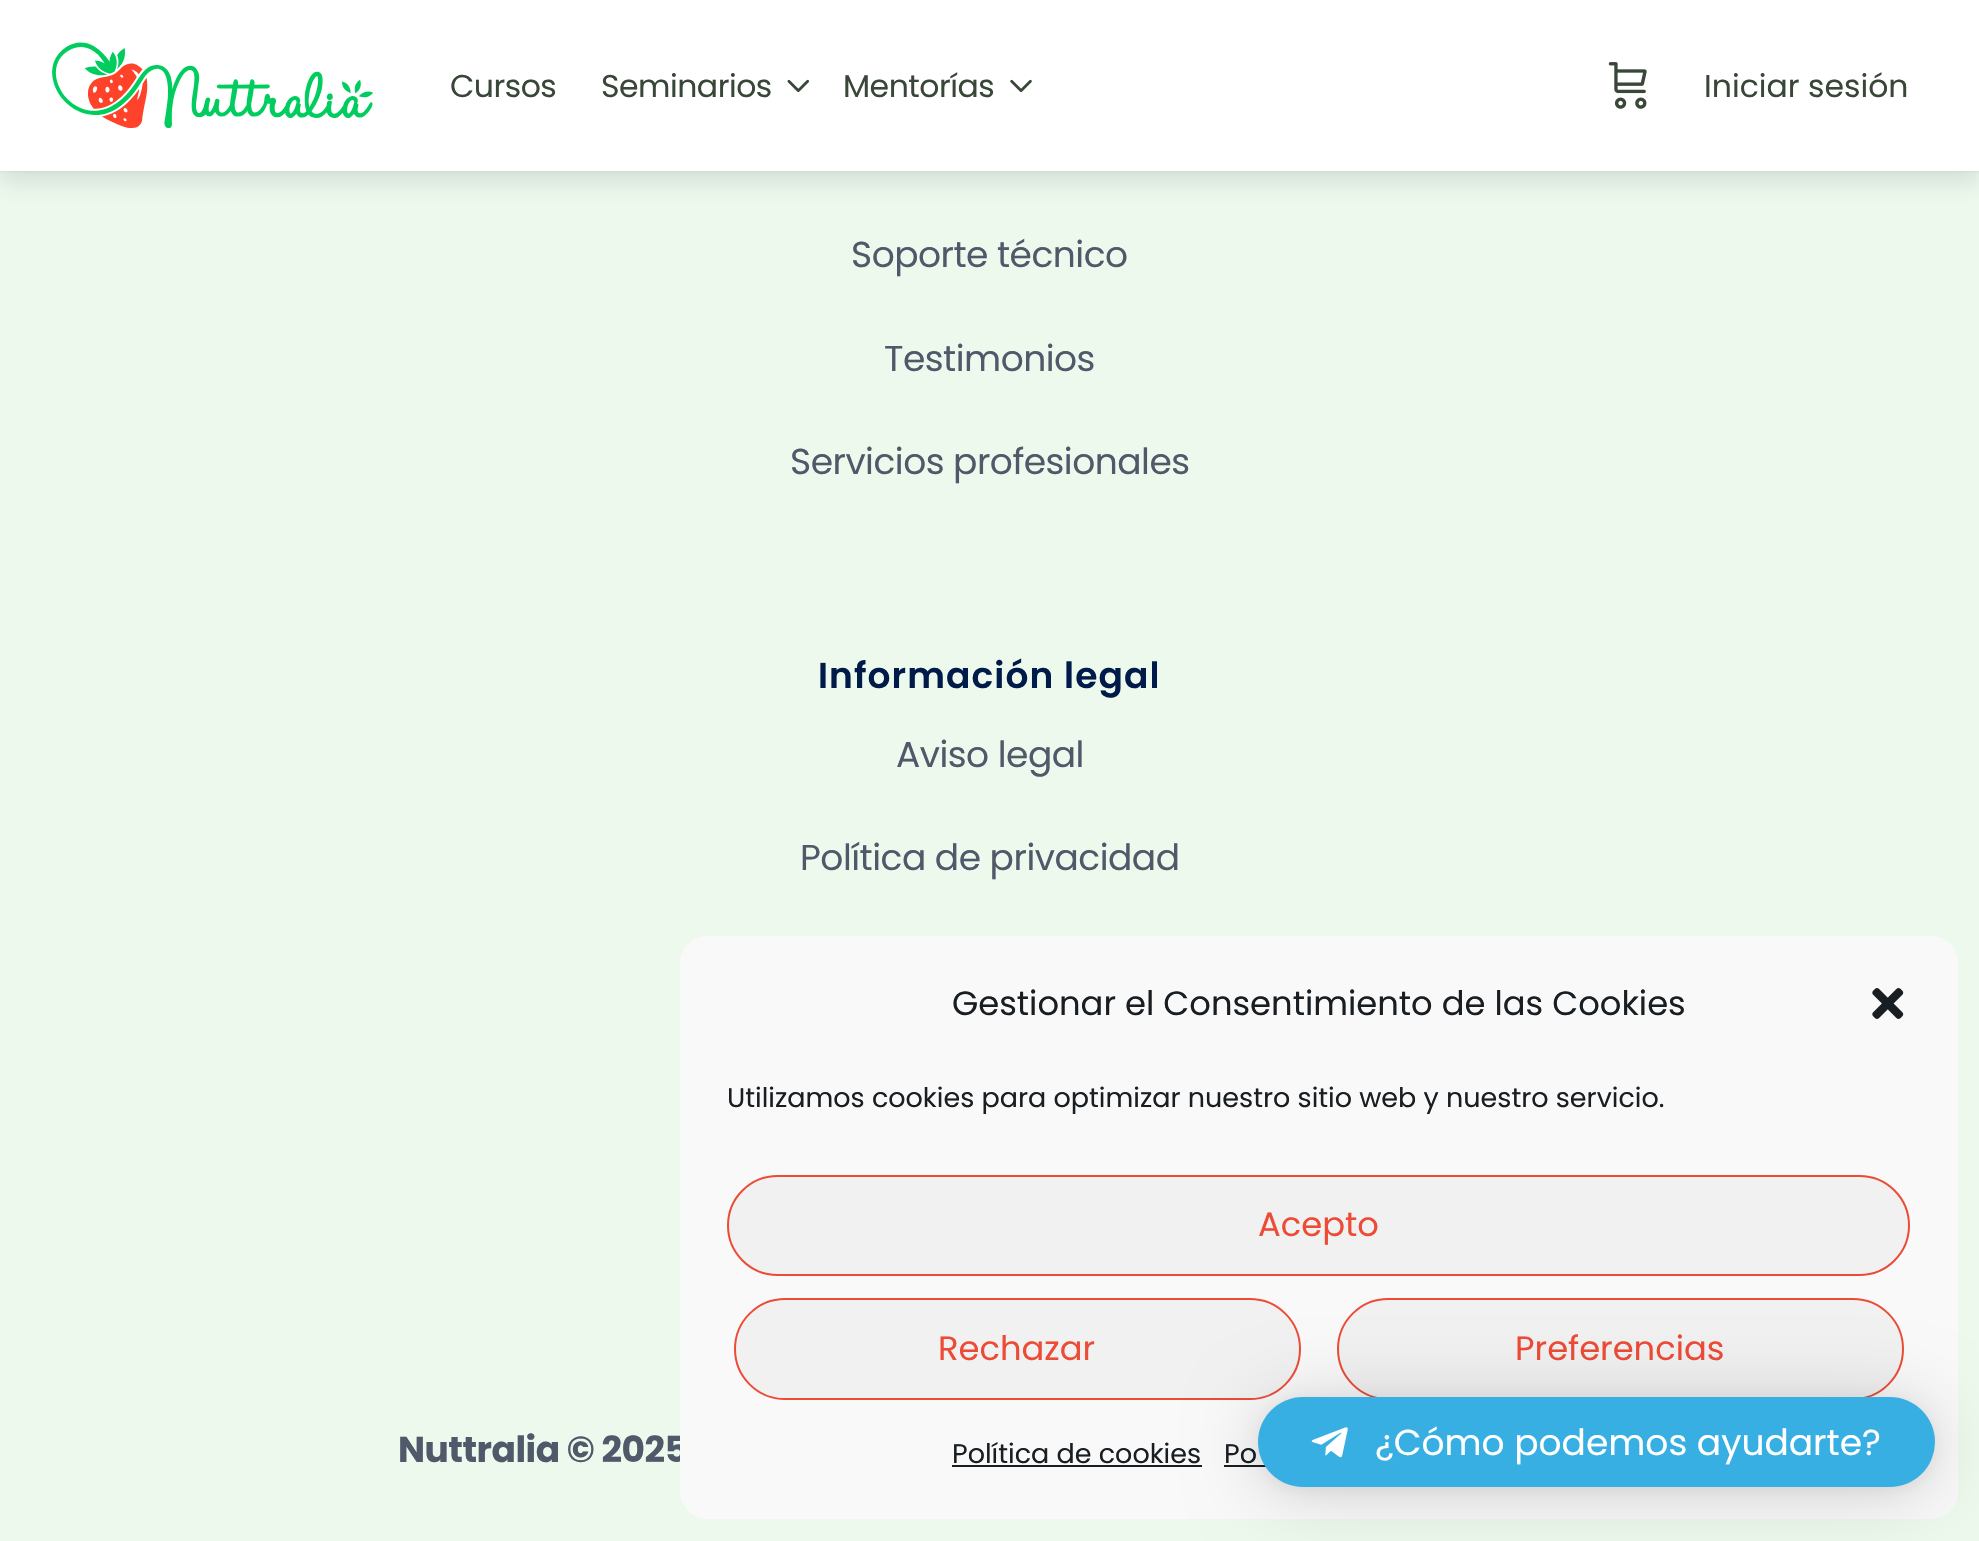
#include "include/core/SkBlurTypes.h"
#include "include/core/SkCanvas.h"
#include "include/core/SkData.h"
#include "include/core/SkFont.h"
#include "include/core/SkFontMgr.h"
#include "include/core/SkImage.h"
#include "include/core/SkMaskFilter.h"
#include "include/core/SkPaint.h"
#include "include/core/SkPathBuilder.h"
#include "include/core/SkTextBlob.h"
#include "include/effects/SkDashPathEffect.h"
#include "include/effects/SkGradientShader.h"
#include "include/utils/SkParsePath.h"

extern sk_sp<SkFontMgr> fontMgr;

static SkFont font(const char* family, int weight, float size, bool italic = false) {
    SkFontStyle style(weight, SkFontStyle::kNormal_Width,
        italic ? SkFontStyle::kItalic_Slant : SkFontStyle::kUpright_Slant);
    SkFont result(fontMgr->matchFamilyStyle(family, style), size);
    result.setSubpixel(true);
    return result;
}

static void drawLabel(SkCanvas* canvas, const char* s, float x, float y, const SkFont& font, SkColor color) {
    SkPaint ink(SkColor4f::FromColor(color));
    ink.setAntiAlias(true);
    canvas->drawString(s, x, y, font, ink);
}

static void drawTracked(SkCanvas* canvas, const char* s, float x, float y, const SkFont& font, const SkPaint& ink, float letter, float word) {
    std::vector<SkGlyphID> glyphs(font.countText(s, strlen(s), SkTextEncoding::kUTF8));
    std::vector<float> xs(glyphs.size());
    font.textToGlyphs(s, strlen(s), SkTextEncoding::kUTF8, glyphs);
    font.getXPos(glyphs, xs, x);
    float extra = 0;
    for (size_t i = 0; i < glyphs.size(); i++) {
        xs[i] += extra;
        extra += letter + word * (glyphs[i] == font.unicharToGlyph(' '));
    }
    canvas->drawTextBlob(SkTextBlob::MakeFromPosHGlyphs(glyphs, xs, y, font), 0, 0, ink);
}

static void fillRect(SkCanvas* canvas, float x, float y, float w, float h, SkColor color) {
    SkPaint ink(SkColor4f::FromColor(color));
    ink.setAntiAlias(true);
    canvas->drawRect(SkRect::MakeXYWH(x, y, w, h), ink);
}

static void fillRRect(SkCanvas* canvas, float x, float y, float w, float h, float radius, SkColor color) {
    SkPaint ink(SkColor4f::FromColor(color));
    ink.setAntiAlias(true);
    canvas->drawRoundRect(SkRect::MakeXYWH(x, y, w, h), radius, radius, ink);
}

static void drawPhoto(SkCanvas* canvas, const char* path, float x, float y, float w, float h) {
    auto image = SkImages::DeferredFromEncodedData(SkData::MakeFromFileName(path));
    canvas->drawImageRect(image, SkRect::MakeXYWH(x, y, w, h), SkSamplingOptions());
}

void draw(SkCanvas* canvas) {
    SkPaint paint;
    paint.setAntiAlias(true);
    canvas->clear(0xFFECF9EC);
    paint.setColor(0x2641476C);
    paint.setMaskFilter(SkMaskFilter::MakeBlur(kNormal_SkBlurStyle, 11));
    canvas->drawRect(SkRect::MakeXYWH(0, 11, 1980, 171), paint);
    paint.setMaskFilter(nullptr);
    fillRect(canvas, 0, 171, 1979, 2, 0x0D8B8D9D);
    fillRect(canvas, 0, 0, 1979, 171, 0xFFFFFFFF);
    drawPhoto(canvas, "assets/img1.png", 52, 42, 321, 86);
    SkFont font1 = font("Poppins", 400, 31.5f);
    paint.setColor(0xFF394739);
    drawTracked(canvas, "Cursos", 450, 97, font1, paint, -0.5f, 0);
    drawTracked(canvas, "Seminarios", 601, 97, font1, paint, -0.5f, 0);
    drawPhoto(canvas, "assets/img2.png", 787, 79, 22, 14);
    drawTracked(canvas, "Mentorías", 843, 97, font1, paint, -0.5f, 0);
    drawPhoto(canvas, "assets/img3.png", 1010, 79, 22, 13);
    drawPhoto(canvas, "assets/img4.png", 1608, 62, 39, 47);
    drawLabel(canvas, "Iniciar sesión", 1704, 97, font1, 0xFF394739);
    SkFont font2 = font("Poppins", 400, 36);
    paint.setColor(0xFF4F596A);
    drawTracked(canvas, "Soporte técnico", 851, 267, font2, paint, -0.5f, 0);
    drawTracked(canvas, "Testimonios", 884, 371, font2, paint, -0.5f, 0);
    drawTracked(canvas, "Servicios profesionales", 790, 474, font2, paint, -0.5f, 0);
    SkFont font3 = font("Poppins", 600, 36);
    paint.setColor(0xFF001A49);
    drawTracked(canvas, "Información legal", 818, 688, font3, paint, 1.1f, 0);
    paint.setColor(0xFF4F596A);
    drawTracked(canvas, "Aviso legal", 896, 767, font2, paint, -0.5f, 0);
    drawTracked(canvas, "Política de privacidad", 800, 870, font2, paint, -0.5f, 0);
    SkFont font4 = font("Poppins", 700, 36);
    drawTracked(canvas, "Nuttralia © 2025", 398, 1462, font4, paint, -0.5f, 0);
    paint.setColor(0xFFF9F9F9);
    canvas->drawRoundRect(SkRect::MakeXYWH(681, 937, 1276, 581), 26, 26, paint);
    paint.setStroke(true);
    paint.setStrokeWidth(2);
    canvas->drawRoundRect(SkRect::MakeXYWH(681, 937, 1276, 581), 26, 26, paint);
    SkFont font5 = font("Poppins", 400, 33.75f);
    drawLabel(canvas, "Gestionar el Consentimiento de las Cookies", 952, 1015, font5, 0xFF191E23);
    drawPhoto(canvas, "assets/img5.png", 1872, 988, 32, 31);
    SkFont font6 = font("Poppins", 400, 27);
    drawLabel(canvas, "Utilizamos cookies para optimizar nuestro sitio web y nuestro servicio.", 727, 1107, font6, 0xFF191E23);
    paint.setStroke(false);
    paint.setColor(0xFFF1F1F1);
    canvas->drawRoundRect(SkRect::MakeXYWH(728, 1176, 1181, 99), 49.5f, 49.5f, paint);
    paint.setStroke(true);
    paint.setColor(0xFFED4B36);
    canvas->drawRoundRect(SkRect::MakeXYWH(728, 1176, 1181, 99), 49.5f, 49.5f, paint);
    drawLabel(canvas, "Acepto", 1258, 1236, font5, 0xFFED4B36);
    paint.setStroke(false);
    paint.setColor(0xFFF1F1F1);
    canvas->drawRoundRect(SkRect::MakeXYWH(735, 1299, 565, 100), 50, 50, paint);
    paint.setStroke(true);
    paint.setColor(0xFFED4B36);
    canvas->drawRoundRect(SkRect::MakeXYWH(735, 1299, 565, 100), 50, 50, paint);
    drawLabel(canvas, "Rechazar", 938, 1360, font5, 0xFFED4B36);
    paint.setStroke(false);
    paint.setColor(0xFFF1F1F1);
    canvas->drawRoundRect(SkRect::MakeXYWH(1338, 1299, 565, 100), 50, 50, paint);
    paint.setStroke(true);
    paint.setColor(0xFFED4B36);
    canvas->drawRoundRect(SkRect::MakeXYWH(1338, 1299, 565, 100), 50, 50, paint);
    drawLabel(canvas, "Preferencias", 1515, 1360, font5, 0xFFED4B36);
    drawLabel(canvas, "Política de cookies", 952, 1463, font6, 0xFF191E23);
    fillRect(canvas, 952, 1465, 250, 2, 0xFF191E23);
    drawLabel(canvas, "Po", 1224, 1463, font6, 0xFF191E23);
    fillRect(canvas, 1224, 1465, 42, 2, 0xFF191E23);
    paint.setStroke(false);
    paint.setColor(0x29000000);
    paint.setMaskFilter(SkMaskFilter::MakeBlur(kNormal_SkBlurStyle, 36));
    canvas->drawRoundRect(SkRect::MakeXYWH(1258, 1402, 677, 90), 45, 45, paint);
    paint.setMaskFilter(nullptr);
    paint.setColor(0x0F000000);
    paint.setMaskFilter(SkMaskFilter::MakeBlur(kNormal_SkBlurStyle, 7));
    canvas->drawRoundRect(SkRect::MakeXYWH(1258, 1400, 677, 90), 45, 45, paint);
    paint.setMaskFilter(nullptr);
    fillRRect(canvas, 1258, 1397, 677, 90, 45, 0xFF37AFE2);
    drawPhoto(canvas, "assets/img6.png", 1311, 1427, 37, 31);
    drawLabel(canvas, "¿Cómo podemos ayudarte?", 1375, 1455, font2, 0xFFFFFFFF);
}
